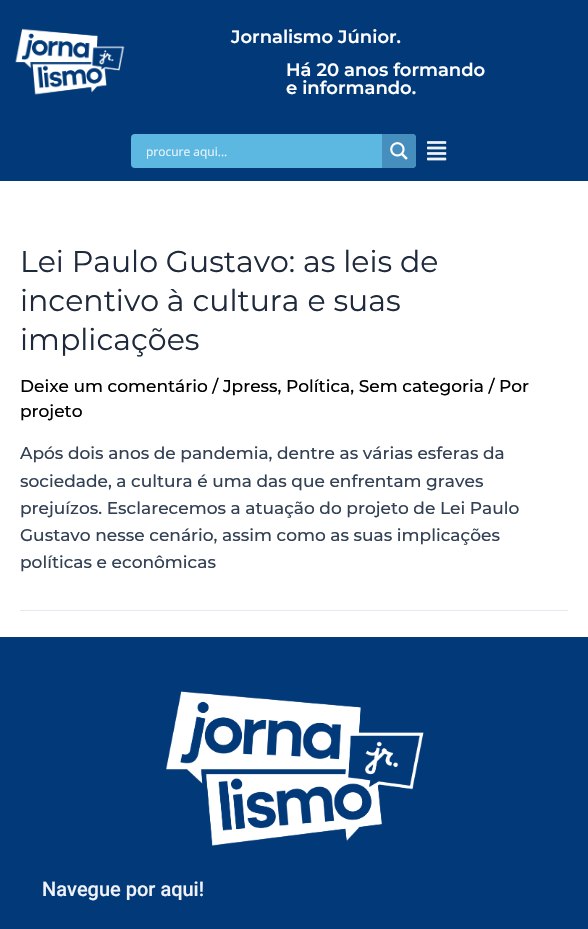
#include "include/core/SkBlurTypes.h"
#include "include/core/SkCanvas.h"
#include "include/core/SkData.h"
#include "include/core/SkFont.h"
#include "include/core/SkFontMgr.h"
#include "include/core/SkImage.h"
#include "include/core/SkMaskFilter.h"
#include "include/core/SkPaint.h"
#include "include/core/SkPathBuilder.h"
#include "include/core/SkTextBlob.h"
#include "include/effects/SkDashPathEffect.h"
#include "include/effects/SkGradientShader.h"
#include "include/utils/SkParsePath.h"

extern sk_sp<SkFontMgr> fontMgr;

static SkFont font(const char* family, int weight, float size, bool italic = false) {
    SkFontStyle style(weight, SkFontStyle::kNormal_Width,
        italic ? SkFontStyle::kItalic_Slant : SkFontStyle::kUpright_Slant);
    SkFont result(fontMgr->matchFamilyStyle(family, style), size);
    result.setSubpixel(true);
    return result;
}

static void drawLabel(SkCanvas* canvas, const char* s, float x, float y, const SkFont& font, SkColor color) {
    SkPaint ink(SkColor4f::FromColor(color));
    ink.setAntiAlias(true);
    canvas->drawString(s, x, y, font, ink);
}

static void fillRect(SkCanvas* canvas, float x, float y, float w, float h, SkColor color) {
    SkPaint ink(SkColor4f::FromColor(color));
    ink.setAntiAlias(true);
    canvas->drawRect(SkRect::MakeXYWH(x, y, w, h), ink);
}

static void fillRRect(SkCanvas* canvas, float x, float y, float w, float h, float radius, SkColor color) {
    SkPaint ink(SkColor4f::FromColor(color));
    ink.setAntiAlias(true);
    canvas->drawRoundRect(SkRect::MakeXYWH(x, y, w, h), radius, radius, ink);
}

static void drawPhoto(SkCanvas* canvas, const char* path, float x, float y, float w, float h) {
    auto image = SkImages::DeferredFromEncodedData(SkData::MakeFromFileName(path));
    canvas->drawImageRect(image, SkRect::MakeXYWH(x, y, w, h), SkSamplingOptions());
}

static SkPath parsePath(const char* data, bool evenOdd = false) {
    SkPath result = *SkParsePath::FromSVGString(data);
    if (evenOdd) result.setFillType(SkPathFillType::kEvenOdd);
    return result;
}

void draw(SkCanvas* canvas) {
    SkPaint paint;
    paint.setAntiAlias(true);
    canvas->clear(0xFFFFFFFF);
    fillRect(canvas, 0, 0, 588, 181, 0xFF023978);
    drawPhoto(canvas, "assets/img1.png", 15, 28, 110, 67);
    SkFont font1 = font("Montserrat", 600, 18);
    drawLabel(canvas, "Jornalismo Júnior.", 231, 43, font1, 0xFFFFFFFF);
    drawLabel(canvas, "Há 20 anos formando", 286, 76, font1, 0xFFFFFFFF);
    drawLabel(canvas, "e informando.", 286, 94, font1, 0xFFFFFFFF);
    fillRRect(canvas, 131, 134, 285, 34, 4, 0xFF5CB7E1);
    SkFont font2 = font("Open Sans", 400, 12);
    drawLabel(canvas, "procure aqui...", 146, 156, font2, 0xFFE7F4FB);
    paint.setColor(0xFF468EBE);
    canvas->drawPath(parsePath("M382 134H412C414 134 416 136 416 138V164C416 166 414 168 412 168H382Z"), paint);
    drawPhoto(canvas, "assets/img2.png", 390, 142, 18, 18);
    drawPhoto(canvas, "assets/img3.png", 427, 141, 20, 20);
    fillRect(canvas, 20, 610, 548, 1, 0xFFE2E8F0);
    SkFont font3 = font("Montserrat", 400, 30);
    drawLabel(canvas, "Lei Paulo Gustavo: as leis de", 20, 272, font3, 0xFF1E293B);
    drawLabel(canvas, "incentivo à cultura e suas", 20, 311, font3, 0xFF1E293B);
    drawLabel(canvas, "implicações", 20, 350, font3, 0xFF1E293B);
    SkFont font4 = font("Montserrat", 500, 17);
    drawLabel(canvas, "Deixe um comentário / Jpress, Política, Sem categoria / Por", 20, 392, font4, 0xFF000000);
    drawLabel(canvas, "projeto", 20, 417, font4, 0xFF000000);
    drawLabel(canvas, "Após dois anos de pandemia, dentre as várias esferas da", 20, 459, font4, 0xFF334155);
    drawLabel(canvas, "sociedade, a cultura é uma das que enfrentam graves", 20, 487, font4, 0xFF334155);
    drawLabel(canvas, "prejuízos. Esclarecemos a atuação do projeto de Lei Paulo", 20, 514, font4, 0xFF334155);
    drawLabel(canvas, "Gustavo nesse cenário, assim como as suas implicações", 20, 541, font4, 0xFF334155);
    drawLabel(canvas, "políticas e econômicas", 20, 568, font4, 0xFF334155);
    fillRect(canvas, 0, 637, 588, 292, 0xFF023978);
    drawPhoto(canvas, "assets/img4.png", 166, 691, 258, 155);
    SkFont font5 = font("Roboto", 500, 20);
    drawLabel(canvas, "Navegue por aqui!", 42, 896, font5, 0xFFF0F2F9);
}
